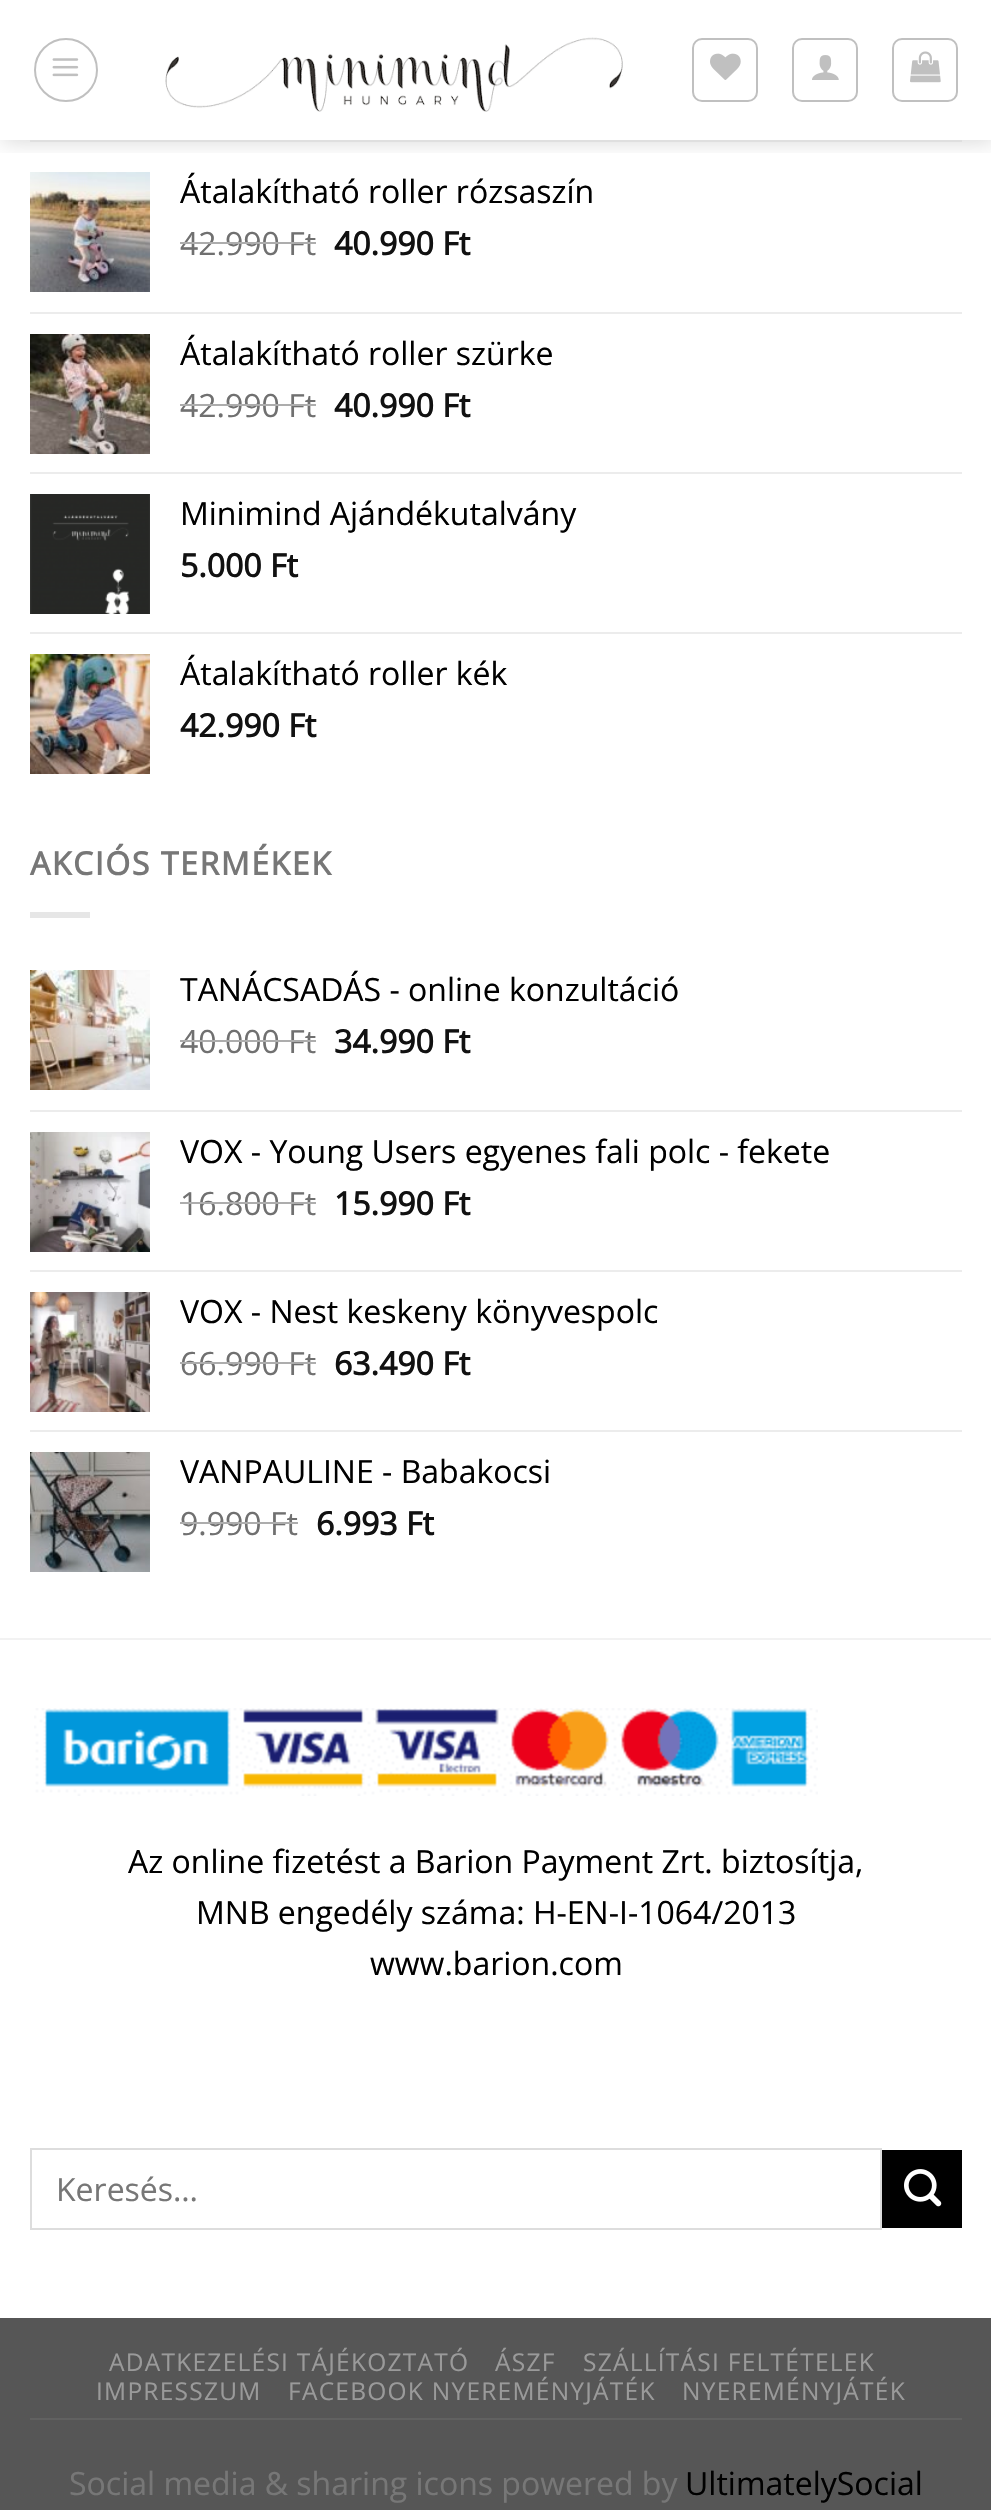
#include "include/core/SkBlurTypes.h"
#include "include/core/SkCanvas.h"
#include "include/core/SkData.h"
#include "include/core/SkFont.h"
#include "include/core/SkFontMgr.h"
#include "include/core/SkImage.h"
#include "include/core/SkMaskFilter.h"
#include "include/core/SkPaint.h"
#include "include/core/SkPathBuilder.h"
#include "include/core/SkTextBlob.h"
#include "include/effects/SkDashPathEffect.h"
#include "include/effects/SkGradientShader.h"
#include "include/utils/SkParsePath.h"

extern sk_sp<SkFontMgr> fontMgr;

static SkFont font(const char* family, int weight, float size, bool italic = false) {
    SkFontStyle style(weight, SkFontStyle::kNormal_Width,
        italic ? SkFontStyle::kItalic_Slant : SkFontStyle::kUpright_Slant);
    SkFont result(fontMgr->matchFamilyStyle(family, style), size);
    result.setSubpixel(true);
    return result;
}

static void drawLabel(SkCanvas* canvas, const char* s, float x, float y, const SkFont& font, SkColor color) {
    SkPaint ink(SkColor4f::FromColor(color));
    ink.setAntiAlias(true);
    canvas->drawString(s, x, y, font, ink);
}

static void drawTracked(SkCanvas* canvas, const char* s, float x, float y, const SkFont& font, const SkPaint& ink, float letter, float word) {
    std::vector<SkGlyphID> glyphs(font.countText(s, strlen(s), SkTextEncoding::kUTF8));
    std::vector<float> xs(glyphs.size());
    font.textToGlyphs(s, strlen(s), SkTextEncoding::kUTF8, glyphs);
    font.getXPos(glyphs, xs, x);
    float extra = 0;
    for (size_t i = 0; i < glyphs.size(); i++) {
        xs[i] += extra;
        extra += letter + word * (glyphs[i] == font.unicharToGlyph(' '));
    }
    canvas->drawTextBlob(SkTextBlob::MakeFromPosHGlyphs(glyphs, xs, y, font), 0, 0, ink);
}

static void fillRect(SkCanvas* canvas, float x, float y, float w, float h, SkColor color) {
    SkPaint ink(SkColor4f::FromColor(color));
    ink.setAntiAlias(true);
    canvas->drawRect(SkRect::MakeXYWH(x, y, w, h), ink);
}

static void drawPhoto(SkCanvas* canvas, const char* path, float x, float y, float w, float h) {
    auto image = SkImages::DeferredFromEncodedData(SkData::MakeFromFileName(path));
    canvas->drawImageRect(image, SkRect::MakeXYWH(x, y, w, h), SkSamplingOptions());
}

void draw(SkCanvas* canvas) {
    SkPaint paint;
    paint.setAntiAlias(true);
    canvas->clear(0xFF565656);
    fillRect(canvas, 0, 0, 991, 2318, 0xFFFFFFFF);
    drawPhoto(canvas, "assets/img6.png", 30, 172, 120, 120);
    canvas->save();
    canvas->clipRect(SkRect::MakeXYWH(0, 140, 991, 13));
    paint.setColor(0x26000000);
    paint.setMaskFilter(SkMaskFilter::MakeBlur(kNormal_SkBlurStyle, 10));
    canvas->drawRect(SkRect::MakeXYWH(2, 2, 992, 140), paint);
    paint.setMaskFilter(nullptr);
    canvas->restore();
    paint.setStroke(true);
    paint.setStrokeWidth(2);
    paint.setColor(0xFFC0C0C0);
    canvas->drawCircle(66, 70, 31, paint);
    drawPhoto(canvas, "assets/img1.png", 52, 58, 27, 19);
    drawPhoto(canvas, "assets/img2.png", 138, 37, 485, 75);
    canvas->drawRoundRect(SkRect::MakeXYWH(693, 39, 64, 62), 9, 9, paint);
    drawPhoto(canvas, "assets/img3.png", 710, 53, 31, 27);
    canvas->drawRoundRect(SkRect::MakeXYWH(793, 39, 64, 62), 9, 9, paint);
    drawPhoto(canvas, "assets/img4.png", 812, 55, 27, 25);
    canvas->drawRoundRect(SkRect::MakeXYWH(893, 39, 64, 62), 9, 9, paint);
    drawPhoto(canvas, "assets/img5.png", 910, 51, 31, 32);
    fillRect(canvas, 30, 140, 932, 2, 0xFFDFDFDF);
    SkFont font1 = font("Open Sans", 400, 32);
    drawLabel(canvas, "Átalakítható roller rózsaszín", 180, 203, font1, 0xFF000000);
    drawLabel(canvas, "42.990 Ft", 180, 255, font1, 0xFF707070);
    fillRect(canvas, 180, 242, 136, 2, 0xFFADADAD);
    SkFont font2 = font("Open Sans", 700, 32);
    drawLabel(canvas, "40.990 Ft", 334, 255, font2, 0xFF111111);
    fillRect(canvas, 30, 312, 932, 2, 0xFFECECEC);
    drawPhoto(canvas, "assets/img7.png", 30, 334, 120, 120);
    drawLabel(canvas, "Átalakítható roller szürke", 180, 365, font1, 0xFF000000);
    drawLabel(canvas, "42.990 Ft", 180, 417, font1, 0xFF707070);
    fillRect(canvas, 180, 404, 136, 2, 0xFFADADAD);
    drawLabel(canvas, "40.990 Ft", 334, 417, font2, 0xFF111111);
    fillRect(canvas, 30, 472, 932, 2, 0xFFECECEC);
    drawPhoto(canvas, "assets/img8.png", 30, 494, 120, 120);
    drawLabel(canvas, "Minimind Ajándékutalvány", 180, 525, font1, 0xFF000000);
    drawLabel(canvas, "5.000 Ft", 180, 577, font2, 0xFF111111);
    fillRect(canvas, 30, 632, 932, 2, 0xFFECECEC);
    drawPhoto(canvas, "assets/img9.png", 30, 654, 120, 120);
    drawLabel(canvas, "Átalakítható roller kék", 180, 685, font1, 0xFF000000);
    drawLabel(canvas, "42.990 Ft", 180, 737, font2, 0xFF111111);
    paint.setStroke(false);
    paint.setColor(0xFF777777);
    drawTracked(canvas, "AKCIÓS TERMÉKEK", 30, 875, font2, paint, 1.6f, 0);
    fillRect(canvas, 30, 912, 60, 6, 0xFFE6E6E6);
    drawPhoto(canvas, "assets/img10.png", 30, 970, 120, 120);
    drawLabel(canvas, "TANÁCSADÁS - online konzultáció", 180, 1001, font1, 0xFF000000);
    drawLabel(canvas, "40.000 Ft", 180, 1053, font1, 0xFF707070);
    fillRect(canvas, 180, 1040, 136, 2, 0xFFADADAD);
    drawLabel(canvas, "34.990 Ft", 334, 1053, font2, 0xFF111111);
    fillRect(canvas, 30, 1110, 932, 2, 0xFFECECEC);
    drawPhoto(canvas, "assets/img11.png", 30, 1132, 120, 120);
    drawLabel(canvas, "VOX - Young Users egyenes fali polc - fekete", 180, 1163, font1, 0xFF000000);
    drawLabel(canvas, "16.800 Ft", 180, 1215, font1, 0xFF707070);
    fillRect(canvas, 180, 1202, 136, 2, 0xFFADADAD);
    drawLabel(canvas, "15.990 Ft", 334, 1215, font2, 0xFF111111);
    fillRect(canvas, 30, 1270, 932, 2, 0xFFECECEC);
    drawPhoto(canvas, "assets/img12.png", 30, 1292, 120, 120);
    drawLabel(canvas, "VOX - Nest keskeny könyvespolc", 180, 1323, font1, 0xFF000000);
    drawLabel(canvas, "66.990 Ft", 180, 1375, font1, 0xFF707070);
    fillRect(canvas, 180, 1362, 136, 2, 0xFFADADAD);
    drawLabel(canvas, "63.490 Ft", 334, 1375, font2, 0xFF111111);
    fillRect(canvas, 30, 1430, 932, 2, 0xFFECECEC);
    drawPhoto(canvas, "assets/img13.png", 30, 1452, 120, 120);
    drawLabel(canvas, "VANPAULINE - Babakocsi", 180, 1483, font1, 0xFF000000);
    drawLabel(canvas, "9.990 Ft", 180, 1535, font1, 0xFF707070);
    fillRect(canvas, 180, 1522, 118, 2, 0xFFADADAD);
    drawLabel(canvas, "6.993 Ft", 316, 1535, font2, 0xFF111111);
    fillRect(canvas, 0, 1638, 991, 2, 0xFFF2F2F2);
    drawPhoto(canvas, "assets/img14.png", 34, 1708, 784, 88);
    drawLabel(canvas, "Az online fizetést a Barion Payment Zrt. biztosítja,", 128, 1873, font1, 0xFF000000);
    drawLabel(canvas, "MNB engedély száma: H-EN-I-1064/2013", 196, 1924, font1, 0xFF000000);
    drawLabel(canvas, "www.barion.com", 370, 1975, font1, 0xFF000000);
    paint.setStroke(true);
    paint.setColor(0xFFDDDDDD);
    canvas->drawRect(SkRect::MakeXYWH(31, 2149, 850, 80), paint);
    drawLabel(canvas, "Keresés…", 56, 2201, font1, 0xFF777777);
    fillRect(canvas, 882, 2150, 80, 78, 0xFF000000);
    drawPhoto(canvas, "assets/img15.png", 904, 2169, 38, 38);
    fillRect(canvas, 30, 2418, 932, 2, 0xFF616161);
    SkFont font3 = font("Open Sans", 400, 24.5f);
    paint.setStroke(false);
    paint.setColor(0xFF9A9A9A);
    drawTracked(canvas, "ADATKEZELÉSI TÁJÉKOZTATÓ", 109, 2371, font3, paint, 1.25f, 0);
    drawTracked(canvas, "ÁSZF", 495, 2371, font3, paint, 1.25f, 0);
    drawTracked(canvas, "SZÁLLÍTÁSI FELTÉTELEK", 583, 2371, font3, paint, 1.25f, 0);
    drawTracked(canvas, "IMPRESSZUM", 96, 2400, font3, paint, 1.25f, 0);
    drawTracked(canvas, "FACEBOOK NYEREMÉNYJÁTÉK", 288, 2400, font3, paint, 1.25f, 0);
    drawTracked(canvas, "NYEREMÉNYJÁTÉK", 682, 2400, font3, paint, 1.25f, 0);
    drawLabel(canvas, "Social media & sharing icons powered by", 69, 2495, font1, 0xFF777777);
    drawLabel(canvas, "UltimatelySocial", 685, 2495, font1, 0xFF000000);
}
